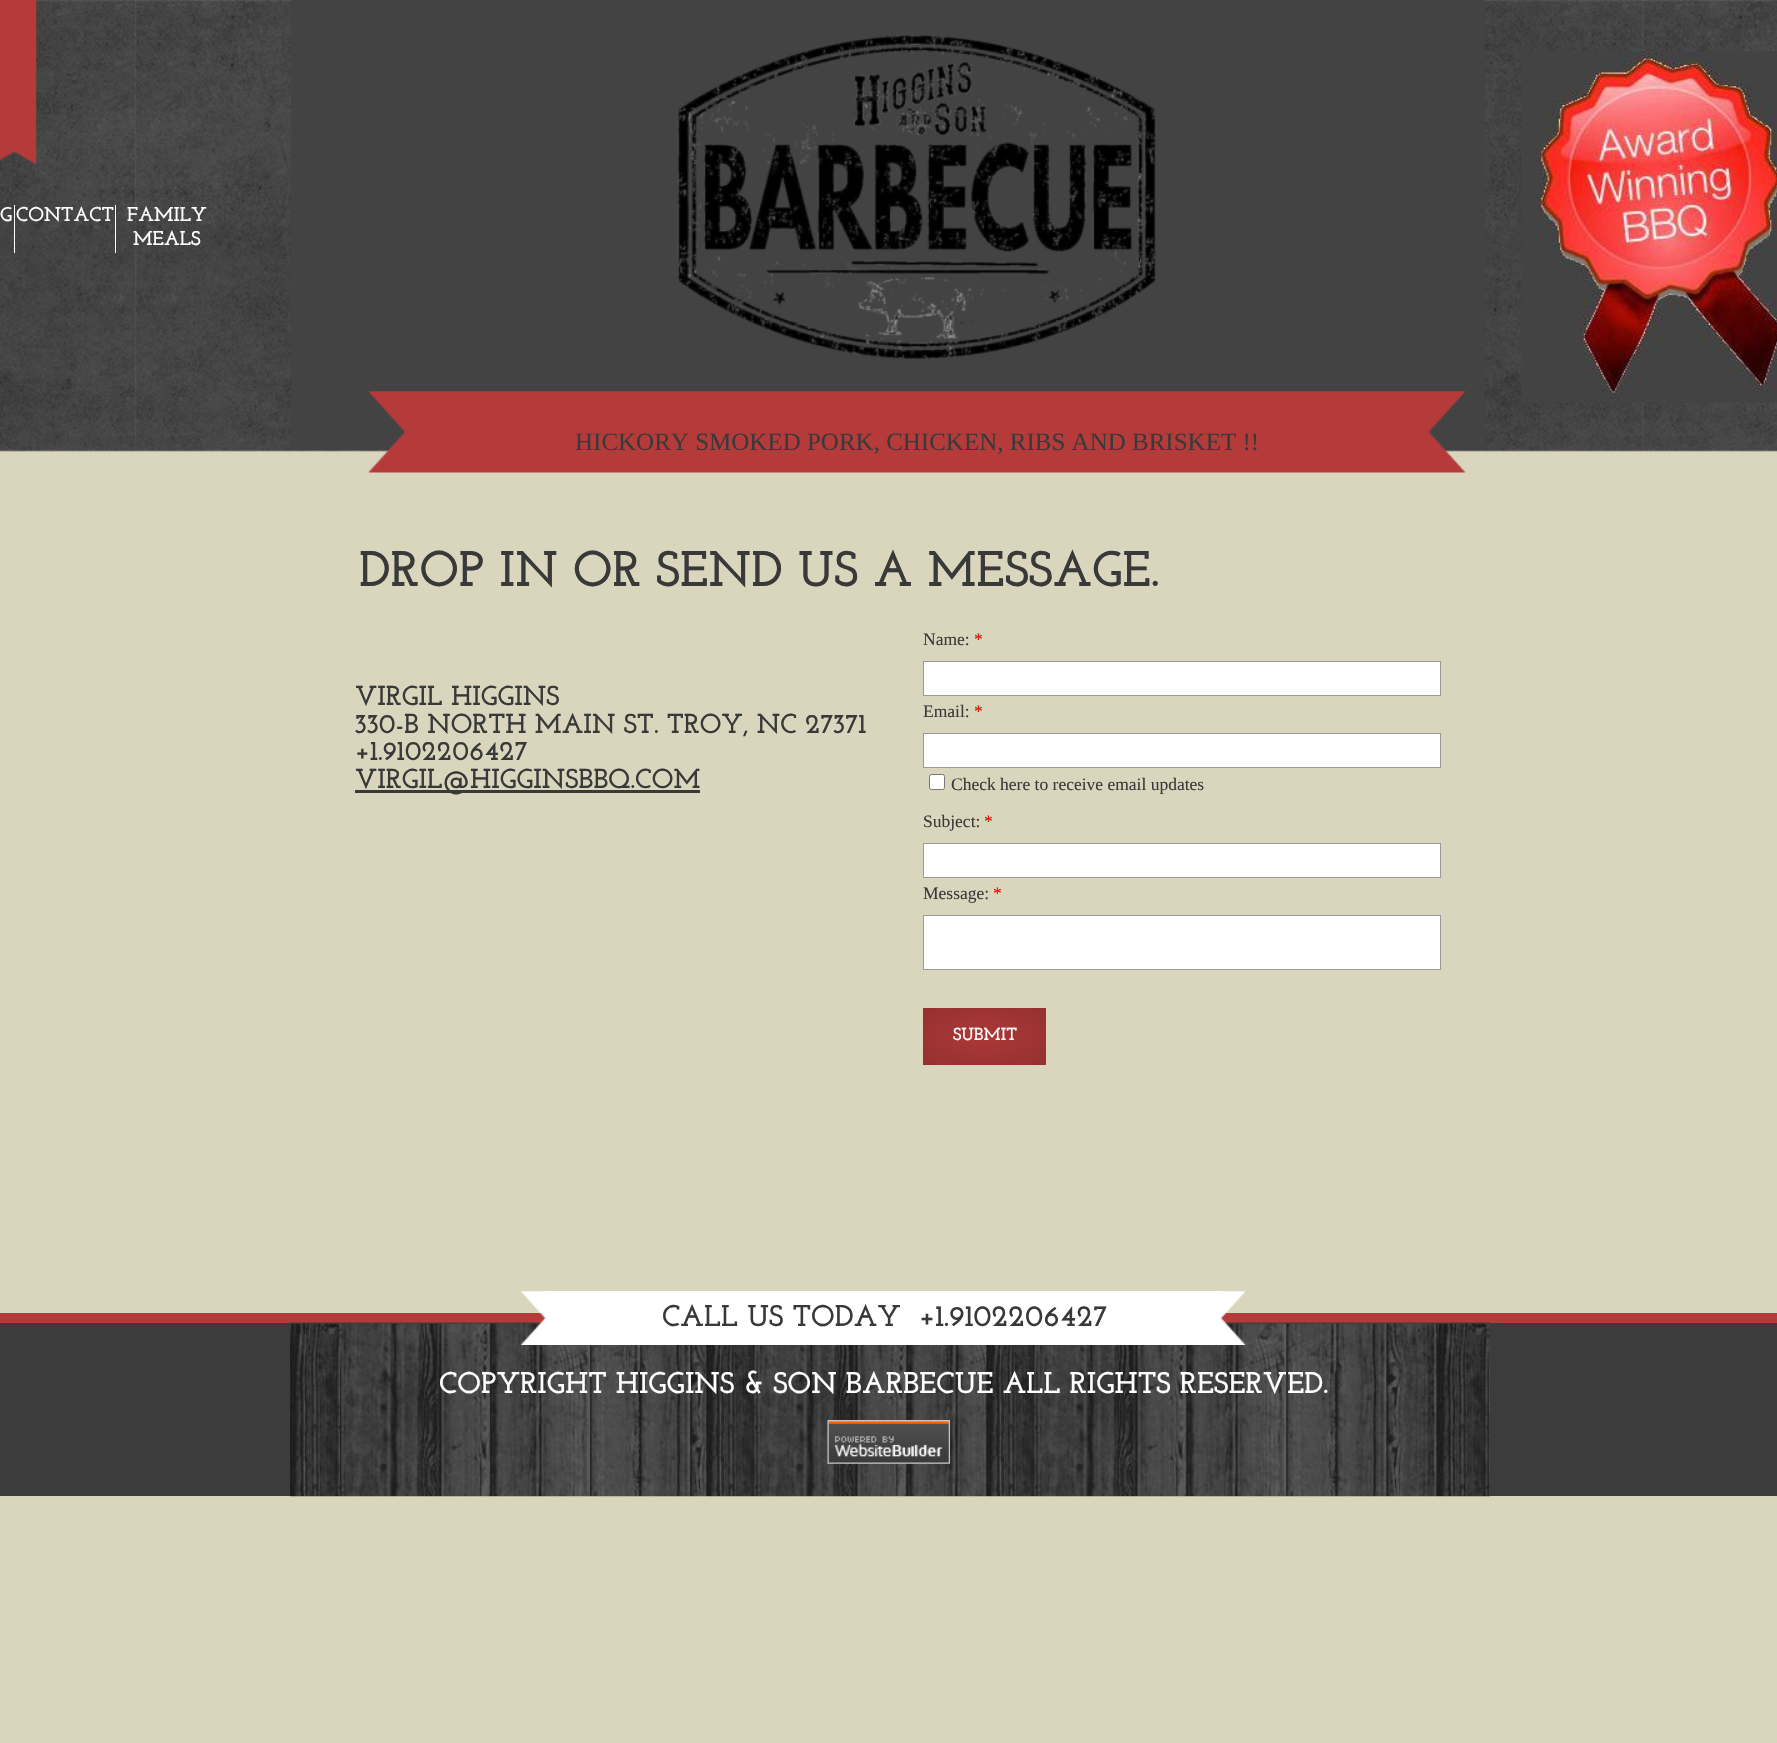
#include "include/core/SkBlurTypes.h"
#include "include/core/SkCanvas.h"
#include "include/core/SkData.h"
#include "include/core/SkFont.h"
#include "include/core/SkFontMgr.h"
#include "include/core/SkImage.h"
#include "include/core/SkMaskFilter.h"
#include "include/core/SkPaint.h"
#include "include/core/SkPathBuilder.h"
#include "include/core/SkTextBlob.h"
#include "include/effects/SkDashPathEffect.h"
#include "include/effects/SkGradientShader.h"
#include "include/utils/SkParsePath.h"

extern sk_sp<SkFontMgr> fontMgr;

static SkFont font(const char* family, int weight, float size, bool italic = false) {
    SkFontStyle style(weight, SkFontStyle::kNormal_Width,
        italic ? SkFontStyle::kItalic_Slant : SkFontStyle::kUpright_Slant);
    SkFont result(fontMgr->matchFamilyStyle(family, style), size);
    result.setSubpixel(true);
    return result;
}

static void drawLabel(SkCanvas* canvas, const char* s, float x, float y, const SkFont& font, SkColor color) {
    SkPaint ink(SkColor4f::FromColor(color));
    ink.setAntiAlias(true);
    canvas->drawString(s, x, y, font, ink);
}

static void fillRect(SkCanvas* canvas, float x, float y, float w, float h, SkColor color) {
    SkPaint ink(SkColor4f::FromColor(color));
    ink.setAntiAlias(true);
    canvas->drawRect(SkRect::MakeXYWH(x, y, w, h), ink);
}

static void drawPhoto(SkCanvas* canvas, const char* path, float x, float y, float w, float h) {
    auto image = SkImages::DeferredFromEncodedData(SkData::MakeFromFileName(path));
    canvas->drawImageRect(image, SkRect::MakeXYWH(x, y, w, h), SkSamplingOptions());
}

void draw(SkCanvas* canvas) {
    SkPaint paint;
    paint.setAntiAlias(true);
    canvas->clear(0xFFDAD6BE);
    drawPhoto(canvas, "assets/img1.png", 0, 0, 1777, 452);
    drawPhoto(canvas, "assets/img2.png", 0, 0, 37, 165);
    fillRect(canvas, 291, 0, 1194, 450, 0xFF434343);
    fillRect(canvas, 14, 205, 1, 48, 0xFFFFFFFF);
    SkFont font1 = font("Josefin Slab", 100, 20);
    drawLabel(canvas, "G", 0, 221, font1, 0xFFFFFFFF);
    fillRect(canvas, 115, 205, 1, 48, 0xFFFFFFFF);
    drawLabel(canvas, "CONTACT", 16, 221, font1, 0xFFFFFFFF);
    drawLabel(canvas, "FAMILY", 127, 221, font1, 0xFFFFFFFF);
    drawLabel(canvas, "MEALS", 133, 245, font1, 0xFFFFFFFF);
    drawPhoto(canvas, "assets/img3.png", 677, 35, 479, 324);
    drawPhoto(canvas, "assets/img4.png", 1521, 51, 256, 352);
    drawPhoto(canvas, "assets/img5.png", 368, 391, 1098, 82);
    SkFont font2 = font("Liberation Serif", 400, 25);
    drawLabel(canvas, "HICKORY SMOKED PORK, CHICKEN, RIBS AND BRISKET !!", 575, 450, font2, 0xFF393939);
    SkFont font3 = font("Josefin Slab", 100, 50);
    drawLabel(canvas, "DROP IN OR SEND US A MESSAGE.", 359, 586, font3, 0xFF393939);
    SkFont font4 = font("Josefin Slab", 100, 27.5f);
    drawLabel(canvas, "VIRGIL HIGGINS", 355, 705, font4, 0xFF393939);
    drawLabel(canvas, "330-B NORTH MAIN ST. TROY, NC 27371", 355, 733, font4, 0xFF393939);
    drawLabel(canvas, "+1.9102206427", 355, 760, font4, 0xFF393939);
    fillRect(canvas, 355, 790, 345, 3, 0xFF393939);
    drawLabel(canvas, "VIRGIL@HIGGINSBBQ.COM", 355, 788, font4, 0xFF393939);
    SkFont font5 = font("Liberation Serif", 400, 17.5f);
    drawLabel(canvas, "Name:", 923, 645, font5, 0xFF393939);
    drawLabel(canvas, "*", 974, 645, font5, 0xFFFF0000);
    paint.setColor(0xFFFFFFFF);
    canvas->drawRect(SkRect::MakeXYWH(923.5f, 661.5f, 517, 34), paint);
    paint.setStroke(true);
    paint.setStrokeWidth(1);
    paint.setColor(0xFF999999);
    canvas->drawRect(SkRect::MakeXYWH(923.5f, 661.5f, 517, 34), paint);
    drawLabel(canvas, "Email:", 923, 717, font5, 0xFF393939);
    drawLabel(canvas, "*", 974, 717, font5, 0xFFFF0000);
    paint.setStroke(false);
    paint.setColor(0xFFFFFFFF);
    canvas->drawRect(SkRect::MakeXYWH(923.5f, 733.5f, 517, 34), paint);
    paint.setStroke(true);
    paint.setColor(0xFF999999);
    canvas->drawRect(SkRect::MakeXYWH(923.5f, 733.5f, 517, 34), paint);
    paint.setStroke(false);
    paint.setColor(0xFFFFFFFF);
    canvas->drawRoundRect(SkRect::MakeXYWH(929.5f, 774.5f, 15, 15), 2, 2, paint);
    paint.setStroke(true);
    paint.setColor(0xFF767676);
    canvas->drawRoundRect(SkRect::MakeXYWH(929.5f, 774.5f, 15, 15), 2, 2, paint);
    drawLabel(canvas, "Check here to receive email updates", 951, 790, font5, 0xFF393939);
    drawLabel(canvas, "Subject:", 923, 827, font5, 0xFF393939);
    drawLabel(canvas, "*", 984, 827, font5, 0xFFFF0000);
    paint.setStroke(false);
    paint.setColor(0xFFFFFFFF);
    canvas->drawRect(SkRect::MakeXYWH(923.5f, 843.5f, 517, 34), paint);
    paint.setStroke(true);
    paint.setColor(0xFF999999);
    canvas->drawRect(SkRect::MakeXYWH(923.5f, 843.5f, 517, 34), paint);
    drawLabel(canvas, "Message:", 923, 899, font5, 0xFF393939);
    drawLabel(canvas, "*", 993, 899, font5, 0xFFFF0000);
    paint.setStroke(false);
    paint.setColor(0xFFFFFFFF);
    canvas->drawRect(SkRect::MakeXYWH(923.5f, 915.5f, 517, 54), paint);
    paint.setStroke(true);
    paint.setColor(0xFF999999);
    canvas->drawRect(SkRect::MakeXYWH(923.5f, 915.5f, 517, 54), paint);
    paint.setStroke(false);
    {
        const SkColor colors[] = {0xFFAC3838, 0xFF943030};
        const float stops[] = {0, 1};
        SkMatrix m = SkMatrix::Translate(984, 1036).preScale(88, 41);
        paint.setShader(SkGradientShader::MakeRadial({0, 0}, 1, colors, stops, 2, SkTileMode::kClamp, 0, &m));
        paint.setAlpha(255);
    }
    canvas->drawRect(SkRect::MakeXYWH(923, 1008, 123, 57), paint);
    SkFont font6 = font("Josefin Slab", 100, 17.5f);
    drawLabel(canvas, "SUBMIT", 953, 1040, font6, 0xFFFFFFFF);
    fillRect(canvas, 0, 1323, 1777, 173, 0xFF3C3C3C);
    fillRect(canvas, 0, 1313, 1777, 10, 0xFFB53B3B);
    drawPhoto(canvas, "assets/img7.png", 290, 1322, 1200, 175);
    drawPhoto(canvas, "assets/img6.png", 520, 1291, 726, 54);
    fillRect(canvas, 546, 1291, 675, 1, 0xFFFFFFFF);
    SkFont font7 = font("Josefin Slab", 100, 30);
    drawLabel(canvas, "CALL US TODAY", 662, 1326, font7, 0xFF393939);
    drawLabel(canvas, "+1.9102206427", 919, 1326, font7, 0xFF393939);
    drawLabel(canvas, "COPYRIGHT HIGGINS & SON BARBECUE ALL RIGHTS RESERVED.", 439, 1393, font7, 0xFFFFFFFF);
    drawPhoto(canvas, "assets/img8.png", 827, 1420, 123, 44);
}
